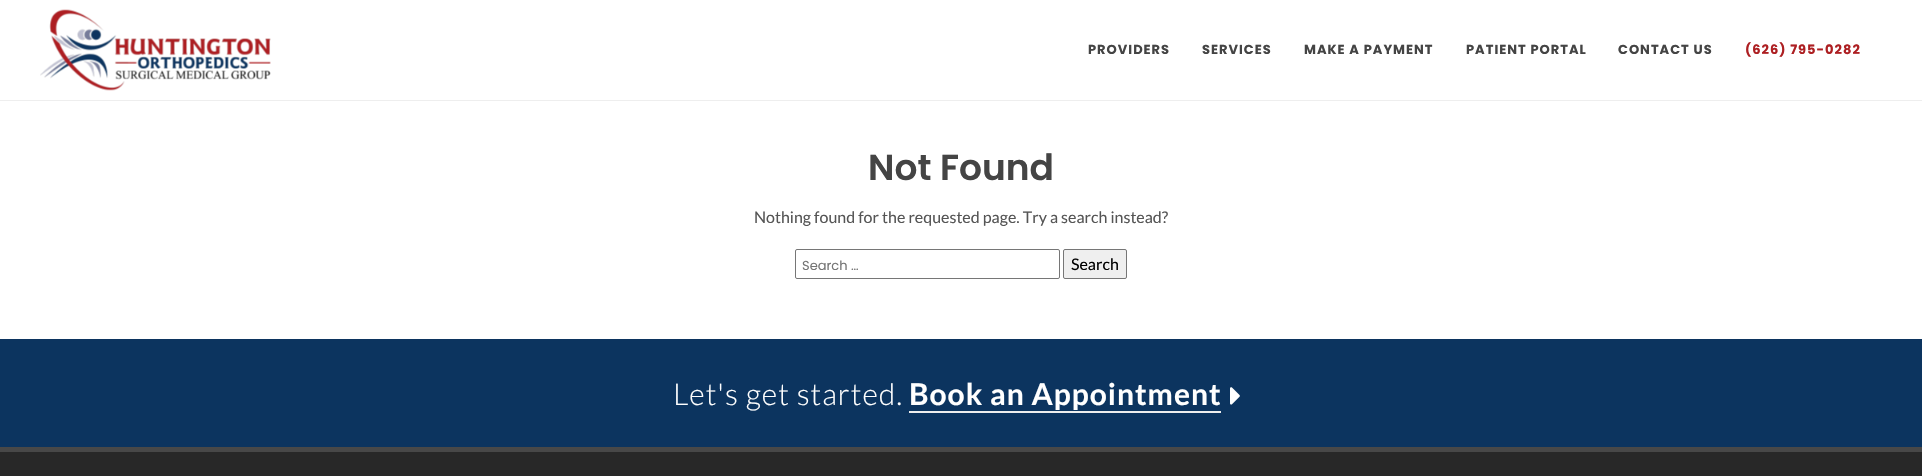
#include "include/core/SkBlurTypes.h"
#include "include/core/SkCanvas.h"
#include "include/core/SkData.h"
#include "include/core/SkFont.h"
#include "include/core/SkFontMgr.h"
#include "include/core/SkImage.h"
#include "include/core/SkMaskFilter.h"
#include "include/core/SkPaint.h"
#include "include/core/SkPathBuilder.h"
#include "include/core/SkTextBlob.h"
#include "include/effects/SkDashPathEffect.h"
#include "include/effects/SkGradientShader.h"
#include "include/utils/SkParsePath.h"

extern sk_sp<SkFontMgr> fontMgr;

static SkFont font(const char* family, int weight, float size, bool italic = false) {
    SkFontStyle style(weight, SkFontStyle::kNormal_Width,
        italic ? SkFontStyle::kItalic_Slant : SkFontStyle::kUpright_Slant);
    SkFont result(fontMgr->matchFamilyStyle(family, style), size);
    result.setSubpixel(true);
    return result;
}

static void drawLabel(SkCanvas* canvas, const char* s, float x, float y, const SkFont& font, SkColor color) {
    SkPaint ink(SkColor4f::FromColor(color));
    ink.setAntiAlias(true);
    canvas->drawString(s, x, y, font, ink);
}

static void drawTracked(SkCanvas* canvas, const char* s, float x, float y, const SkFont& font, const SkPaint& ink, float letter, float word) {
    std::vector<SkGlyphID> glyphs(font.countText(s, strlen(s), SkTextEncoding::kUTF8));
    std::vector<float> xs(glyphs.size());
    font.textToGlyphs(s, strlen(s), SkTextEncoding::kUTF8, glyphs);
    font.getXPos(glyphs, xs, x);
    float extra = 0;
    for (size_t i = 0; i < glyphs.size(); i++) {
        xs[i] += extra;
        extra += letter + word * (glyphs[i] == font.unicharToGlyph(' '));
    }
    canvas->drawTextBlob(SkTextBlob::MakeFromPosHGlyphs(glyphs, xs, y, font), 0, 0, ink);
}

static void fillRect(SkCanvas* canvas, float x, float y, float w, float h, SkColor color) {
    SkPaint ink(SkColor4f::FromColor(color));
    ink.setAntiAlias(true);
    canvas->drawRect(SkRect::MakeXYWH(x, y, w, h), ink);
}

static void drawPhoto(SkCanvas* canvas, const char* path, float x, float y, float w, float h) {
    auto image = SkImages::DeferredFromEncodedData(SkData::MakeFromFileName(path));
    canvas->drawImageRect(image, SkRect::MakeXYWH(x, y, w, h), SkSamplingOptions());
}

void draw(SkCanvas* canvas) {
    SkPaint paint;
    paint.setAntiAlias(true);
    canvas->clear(0xFFFFFFFF);
    fillRect(canvas, 0, 100, 1922, 1, 0xFFEEEEEE);
    drawPhoto(canvas, "assets/img1.png", 40, 9, 231, 82);
    SkFont font1 = font("Poppins", 700, 13);
    paint.setColor(0xFF444444);
    drawTracked(canvas, "PROVIDERS", 1088, 54, font1, paint, 1, 0);
    drawTracked(canvas, "SERVICES", 1202, 54, font1, paint, 1, 0);
    drawTracked(canvas, "MAKE A PAYMENT", 1304, 54, font1, paint, 1, 0);
    drawTracked(canvas, "PATIENT PORTAL", 1466, 54, font1, paint, 1, 0);
    drawTracked(canvas, "CONTACT US", 1618, 54, font1, paint, 1, 0);
    paint.setColor(0xFFAD1F22);
    drawTracked(canvas, "(626) 795-0282", 1745, 54, font1, paint, 1, 0);
    SkFont font2 = font("Poppins", 600, 36);
    drawLabel(canvas, "Not Found", 868, 180, font2, 0xFF444444);
    SkFont font3 = font("Lato", 400, 16);
    drawLabel(canvas, "Nothing found for the requested page. Try a search instead?", 754, 223, font3, 0xFF555555);
    paint.setStroke(true);
    paint.setStrokeWidth(1);
    paint.setColor(0xFF767676);
    canvas->drawRoundRect(SkRect::MakeXYWH(795.5f, 249.5f, 264, 29), 1.5f, 1.5f, paint);
    SkFont font4 = font("Poppins", 400, 13);
    drawLabel(canvas, "Search …", 802, 270, font4, 0xFF757575);
    paint.setStroke(false);
    paint.setColor(0xFFEFEFEF);
    canvas->drawRoundRect(SkRect::MakeXYWH(1063.5f, 249.5f, 63, 29), 1.5f, 1.5f, paint);
    paint.setStroke(true);
    paint.setColor(0xFF767676);
    canvas->drawRoundRect(SkRect::MakeXYWH(1063.5f, 249.5f, 63, 29), 1.5f, 1.5f, paint);
    drawLabel(canvas, "Search", 1071, 270, font3, 0xFF000000);
    fillRect(canvas, 0, 339, 1922, 108, 0xFF0C345F);
    SkFont font5 = font("Lato", 300, 30);
    paint.setStroke(false);
    paint.setColor(0xFFFFFFFF);
    drawTracked(canvas, "Let's get started.", 673, 405, font5, paint, 1, 0);
    SkFont font6 = font("Lato", 700, 30);
    drawTracked(canvas, "Book an Appointment", 909, 405, font6, paint, 1, 0);
    fillRect(canvas, 909, 411, 312, 2, 0xFFEEEEEE);
    drawPhoto(canvas, "assets/img2.png", 1230, 387, 10, 18);
    fillRect(canvas, 0, 452, 1922, 24, 0xFF282828);
    fillRect(canvas, 0, 447, 1922, 5, 0xFF484848);
}
